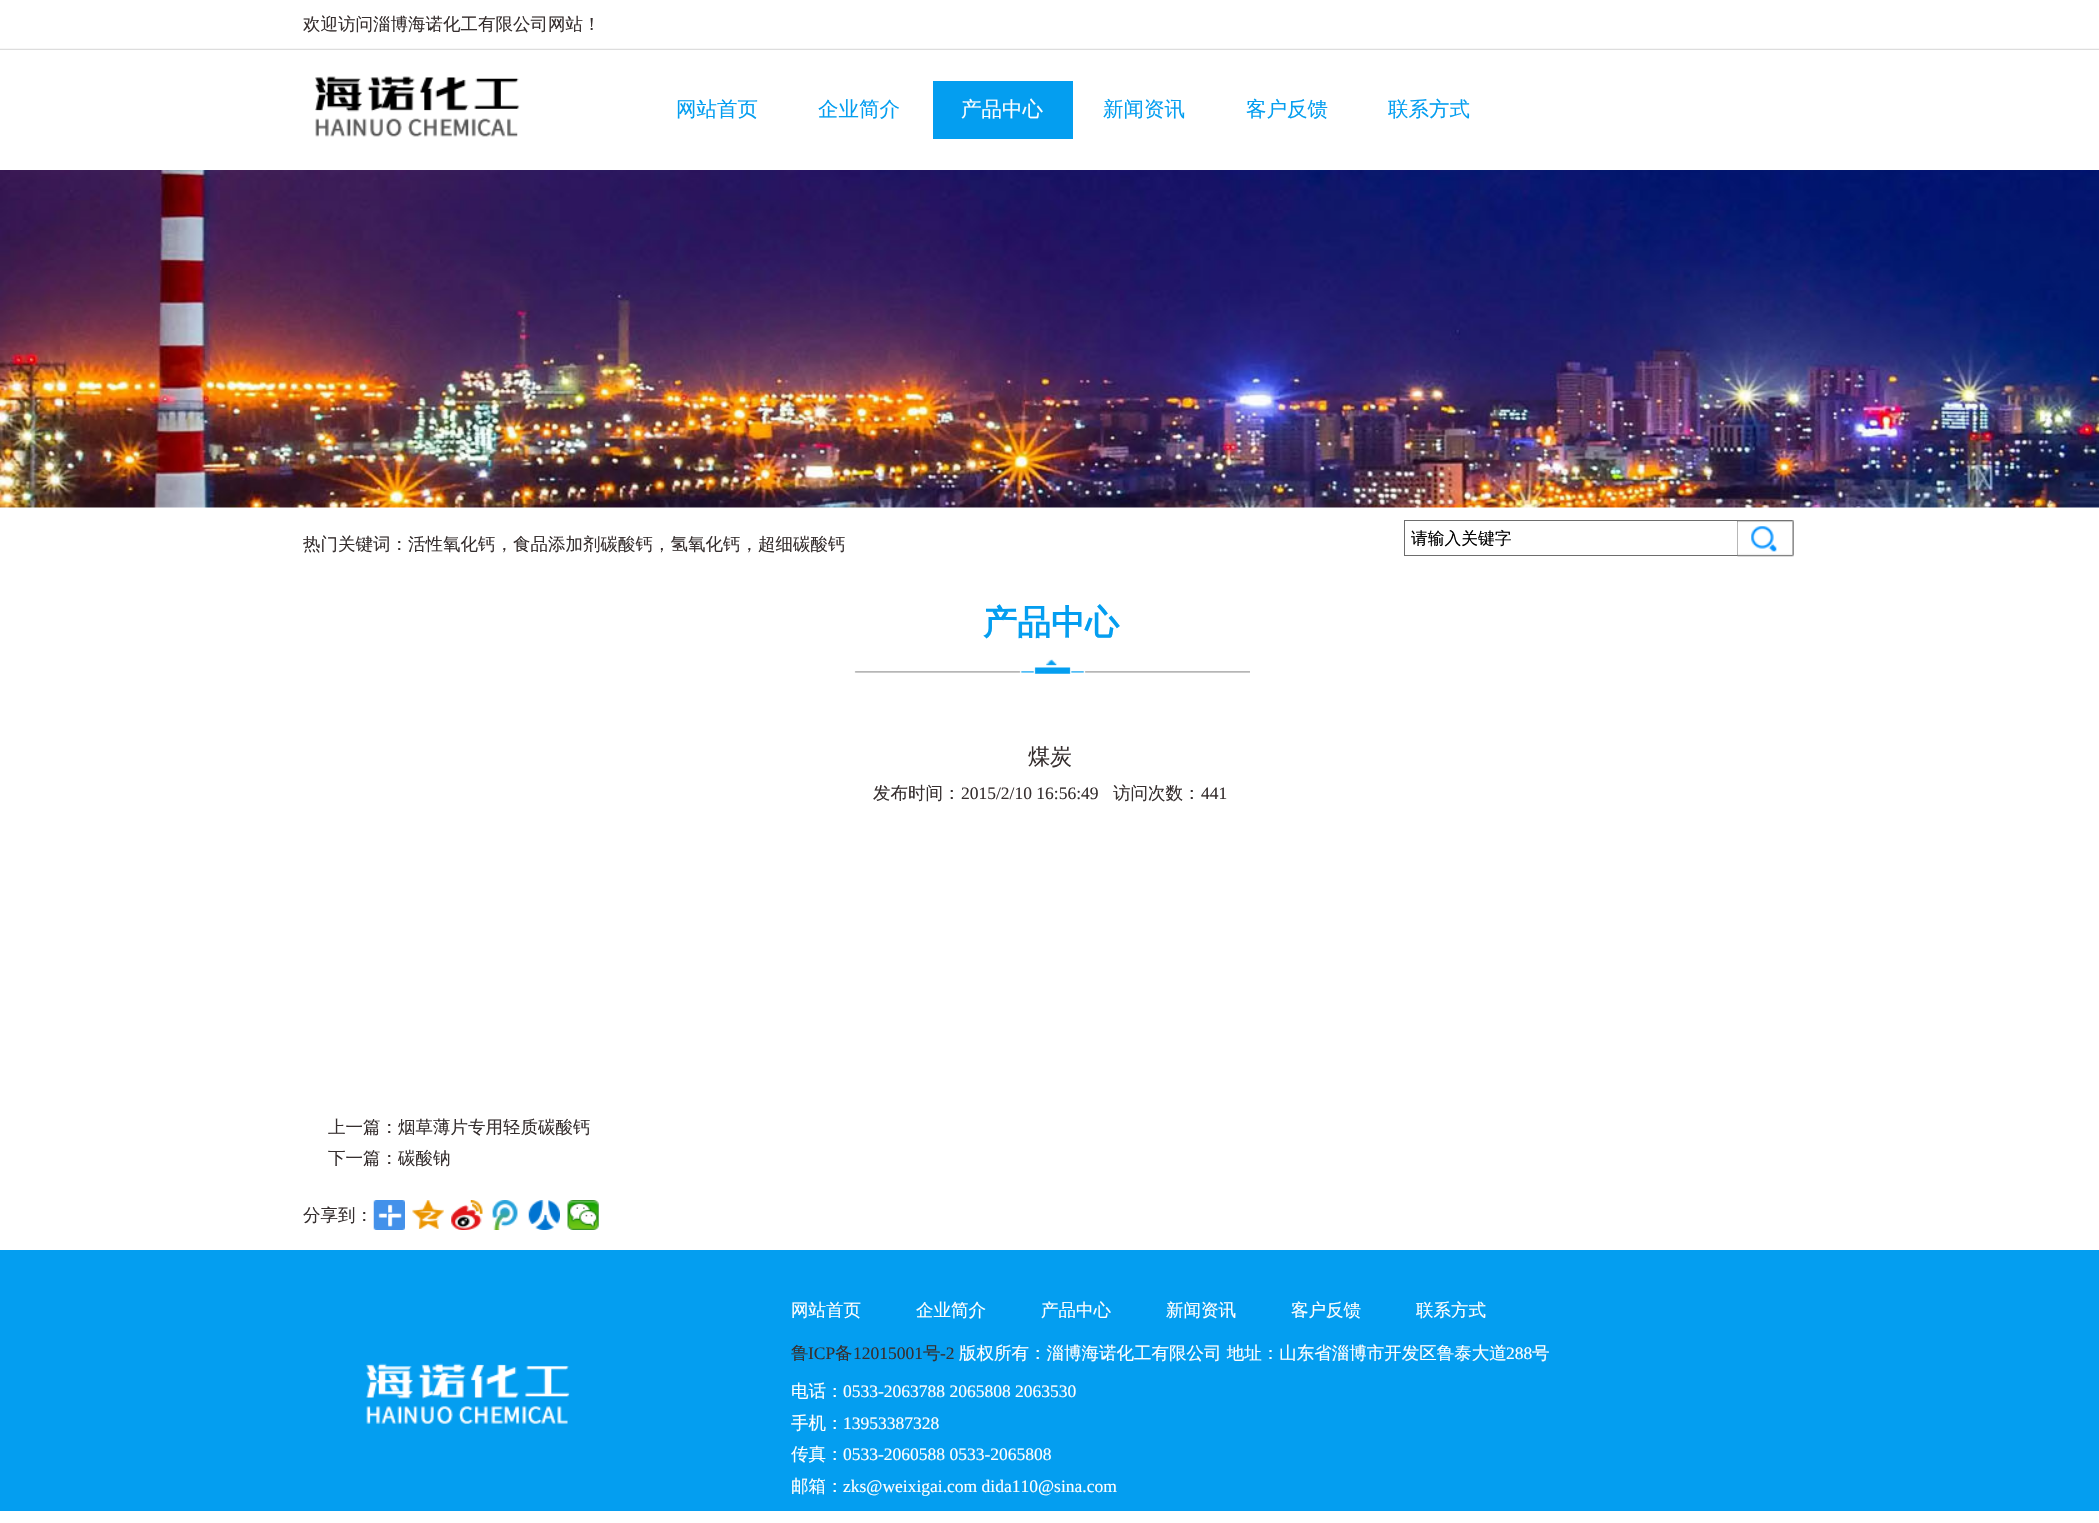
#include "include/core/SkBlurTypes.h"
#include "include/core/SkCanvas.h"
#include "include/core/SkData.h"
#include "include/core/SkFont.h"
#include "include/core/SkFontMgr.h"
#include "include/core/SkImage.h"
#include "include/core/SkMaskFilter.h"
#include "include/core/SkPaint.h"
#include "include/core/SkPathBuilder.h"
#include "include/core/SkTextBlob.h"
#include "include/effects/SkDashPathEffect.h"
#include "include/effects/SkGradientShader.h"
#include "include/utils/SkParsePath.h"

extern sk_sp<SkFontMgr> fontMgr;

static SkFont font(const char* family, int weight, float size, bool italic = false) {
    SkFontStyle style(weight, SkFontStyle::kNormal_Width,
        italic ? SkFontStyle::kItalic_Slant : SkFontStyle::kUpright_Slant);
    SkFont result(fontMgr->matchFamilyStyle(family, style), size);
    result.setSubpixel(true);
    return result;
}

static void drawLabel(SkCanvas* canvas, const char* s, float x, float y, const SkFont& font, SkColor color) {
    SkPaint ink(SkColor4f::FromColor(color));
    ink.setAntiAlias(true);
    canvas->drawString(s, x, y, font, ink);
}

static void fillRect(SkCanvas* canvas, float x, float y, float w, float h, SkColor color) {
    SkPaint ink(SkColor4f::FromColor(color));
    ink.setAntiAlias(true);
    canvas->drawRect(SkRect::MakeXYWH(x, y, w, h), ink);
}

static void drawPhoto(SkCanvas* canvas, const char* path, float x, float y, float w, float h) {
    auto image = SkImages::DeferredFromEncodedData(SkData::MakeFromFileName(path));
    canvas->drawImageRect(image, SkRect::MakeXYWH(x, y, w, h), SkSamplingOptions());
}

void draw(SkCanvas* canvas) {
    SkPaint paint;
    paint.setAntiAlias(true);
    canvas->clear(0xFFFFFFFF);
    drawPhoto(canvas, "assets/img1.png", 0, 48, 2099, 2);
    SkFont font1 = font("WenQuanYi Zen Hei", 500, 17.5f);
    drawLabel(canvas, "欢迎访问淄博海诺化工有限公司网站！", 303, 30, font1, 0xFF362F2F);
    drawPhoto(canvas, "assets/img2.png", 315, 76, 205, 61);
    SkFont font2 = font("WenQuanYi Zen Hei", 500, 20.5f);
    drawLabel(canvas, "网站首页", 676, 116, font2, 0xFF049EF0);
    drawLabel(canvas, "企业简介", 818, 116, font2, 0xFF049EF0);
    fillRect(canvas, 933, 81, 140, 58, 0xFF049EF0);
    drawLabel(canvas, "产品中心", 961, 116, font2, 0xFFFFFFFF);
    drawLabel(canvas, "新闻资讯", 1103, 116, font2, 0xFF049EF0);
    drawLabel(canvas, "客户反馈", 1246, 116, font2, 0xFF049EF0);
    drawLabel(canvas, "联系方式", 1388, 116, font2, 0xFF049EF0);
    drawPhoto(canvas, "assets/img3.png", 0, 170, 2099, 338);
    drawLabel(canvas, "热门关键词：活性氧化钙，食品添加剂碳酸钙，氢氧化钙，超细碳酸钙", 303, 550, font1, 0xFF362F2F);
    paint.setStroke(true);
    paint.setStrokeWidth(1);
    paint.setColor(0xFF6D6D6D);
    canvas->drawRect(SkRect::MakeXYWH(1404.5f, 520.5f, 333, 35), paint);
    SkFont font3 = font("WenQuanYi Zen Hei", 500, 16.75f);
    drawLabel(canvas, "请输入关键字", 1411, 544, font3, 0xFF000000);
    drawPhoto(canvas, "assets/img4.png", 1737, 520, 57, 37);
    drawPhoto(canvas, "assets/img5.png", 854, 659, 396, 15);
    SkFont font4 = font("WenQuanYi Zen Hei", 700, 34);
    drawLabel(canvas, "产品中心", 983, 634, font4, 0xFF049EF0);
    SkFont font5 = font("WenQuanYi Zen Hei", 500, 22);
    drawLabel(canvas, "煤炭", 1028, 764, font5, 0xFF362F2F);
    drawLabel(canvas, "发布时间：", 873, 799, font1, 0xFF362F2F);
    SkFont font6 = font("Liberation Serif", 400, 17.5f);
    drawLabel(canvas, "2015/2/10 16:56:49", 961, 799, font6, 0xFF362F2F);
    drawLabel(canvas, "访问次数：", 1113, 799, font1, 0xFF362F2F);
    drawLabel(canvas, "441", 1201, 799, font6, 0xFF362F2F);
    drawLabel(canvas, "上一篇：烟草薄片专用轻质碳酸钙", 328, 1133, font1, 0xFF362F2F);
    drawLabel(canvas, "下一篇：碳酸钠", 328, 1164, font1, 0xFF362F2F);
    drawLabel(canvas, "分享到：", 303, 1221, font1, 0xFF362F2F);
    drawPhoto(canvas, "assets/img6.png", 373, 1200, 32, 30);
    drawPhoto(canvas, "assets/img7.png", 412, 1200, 32, 29);
    drawPhoto(canvas, "assets/img8.png", 451, 1200, 32, 30);
    drawPhoto(canvas, "assets/img9.png", 492, 1200, 26, 30);
    drawPhoto(canvas, "assets/img10.png", 528, 1200, 32, 30);
    drawPhoto(canvas, "assets/img11.png", 567, 1200, 32, 30);
    fillRect(canvas, 0, 1250, 2099, 261, 0xFF049EF0);
    drawPhoto(canvas, "assets/img12.png", 366, 1363, 204, 61);
    drawLabel(canvas, "网站首页", 791, 1316, font1, 0xFFFFFFFF);
    drawLabel(canvas, "企业简介", 916, 1316, font1, 0xFFFFFFFF);
    drawLabel(canvas, "产品中心", 1041, 1316, font1, 0xFFFFFFFF);
    drawLabel(canvas, "新闻资讯", 1166, 1316, font1, 0xFFFFFFFF);
    drawLabel(canvas, "客户反馈", 1291, 1316, font1, 0xFFFFFFFF);
    drawLabel(canvas, "联系方式", 1416, 1316, font1, 0xFFFFFFFF);
    drawLabel(canvas, "鲁", 791, 1359, font1, 0xFF362F2F);
    drawLabel(canvas, "ICP", 808, 1359, font6, 0xFF362F2F);
    drawLabel(canvas, "备", 835, 1359, font1, 0xFF362F2F);
    drawLabel(canvas, "12015001", 853, 1359, font6, 0xFF362F2F);
    drawLabel(canvas, "号", 923, 1359, font1, 0xFF362F2F);
    drawLabel(canvas, "-2", 940, 1359, font6, 0xFF362F2F);
    drawLabel(canvas, "版权所有：淄博海诺化工有限公司 地址：山东省淄博市开发区鲁泰大道", 959, 1359, font1, 0xFFFFFFFF);
    drawLabel(canvas, "288", 1506, 1359, font6, 0xFFFFFFFF);
    drawLabel(canvas, "号", 1532, 1359, font1, 0xFFFFFFFF);
    drawLabel(canvas, "电话：", 791, 1397, font1, 0xFFFFFFFF);
    drawLabel(canvas, "0533-2063788 2065808 2063530", 843, 1397, font6, 0xFFFFFFFF);
    drawLabel(canvas, "手机：", 791, 1429, font1, 0xFFFFFFFF);
    drawLabel(canvas, "13953387328", 843, 1429, font6, 0xFFFFFFFF);
    drawLabel(canvas, "传真：", 791, 1460, font1, 0xFFFFFFFF);
    drawLabel(canvas, "0533-2060588 0533-2065808", 843, 1460, font6, 0xFFFFFFFF);
    drawLabel(canvas, "邮箱：", 791, 1492, font1, 0xFFFFFFFF);
    drawLabel(canvas, "zks@weixigai.com dida110@sina.com", 843, 1492, font6, 0xFFFFFFFF);
}
